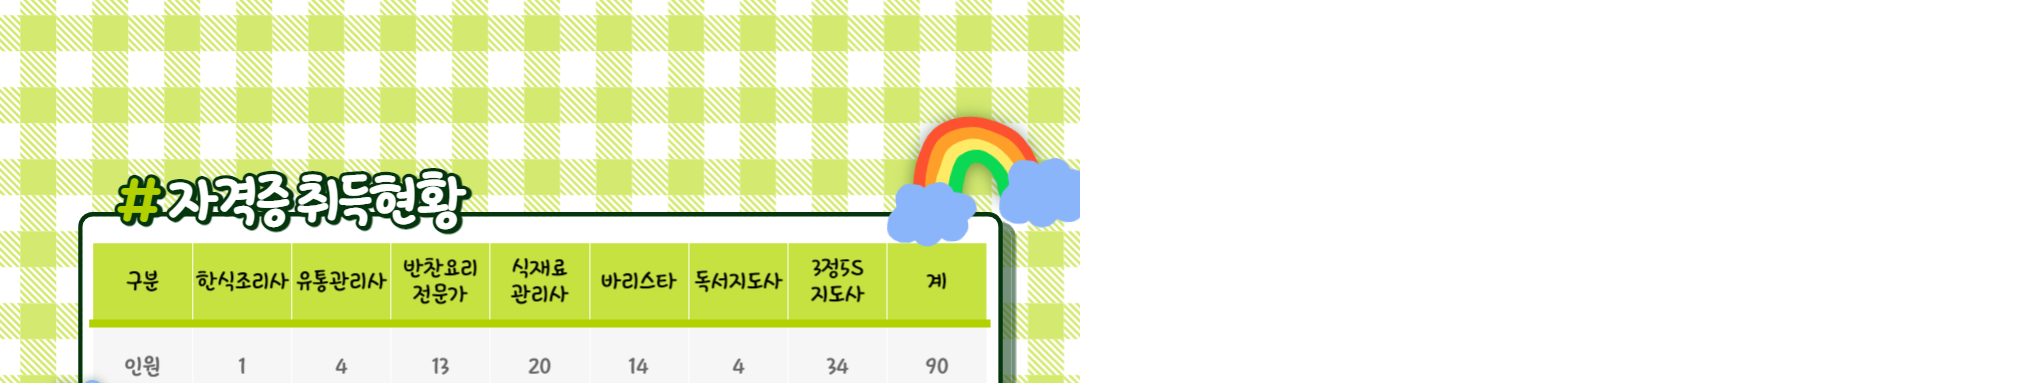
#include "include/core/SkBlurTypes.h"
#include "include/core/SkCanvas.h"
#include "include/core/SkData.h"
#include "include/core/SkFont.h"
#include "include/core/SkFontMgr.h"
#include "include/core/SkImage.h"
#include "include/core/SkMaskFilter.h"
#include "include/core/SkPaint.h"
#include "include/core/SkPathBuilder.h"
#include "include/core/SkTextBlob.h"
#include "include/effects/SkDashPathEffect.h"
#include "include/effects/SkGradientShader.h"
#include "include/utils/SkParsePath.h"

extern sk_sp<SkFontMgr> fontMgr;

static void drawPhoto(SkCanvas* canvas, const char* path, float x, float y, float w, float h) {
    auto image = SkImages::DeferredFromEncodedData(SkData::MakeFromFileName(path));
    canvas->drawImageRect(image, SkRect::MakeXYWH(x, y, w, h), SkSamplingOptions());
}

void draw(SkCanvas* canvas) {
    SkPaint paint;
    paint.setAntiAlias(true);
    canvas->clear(0xFFFFFFFF);
    drawPhoto(canvas, "assets/img1.png", 0, 0, 1080, 383);
}
